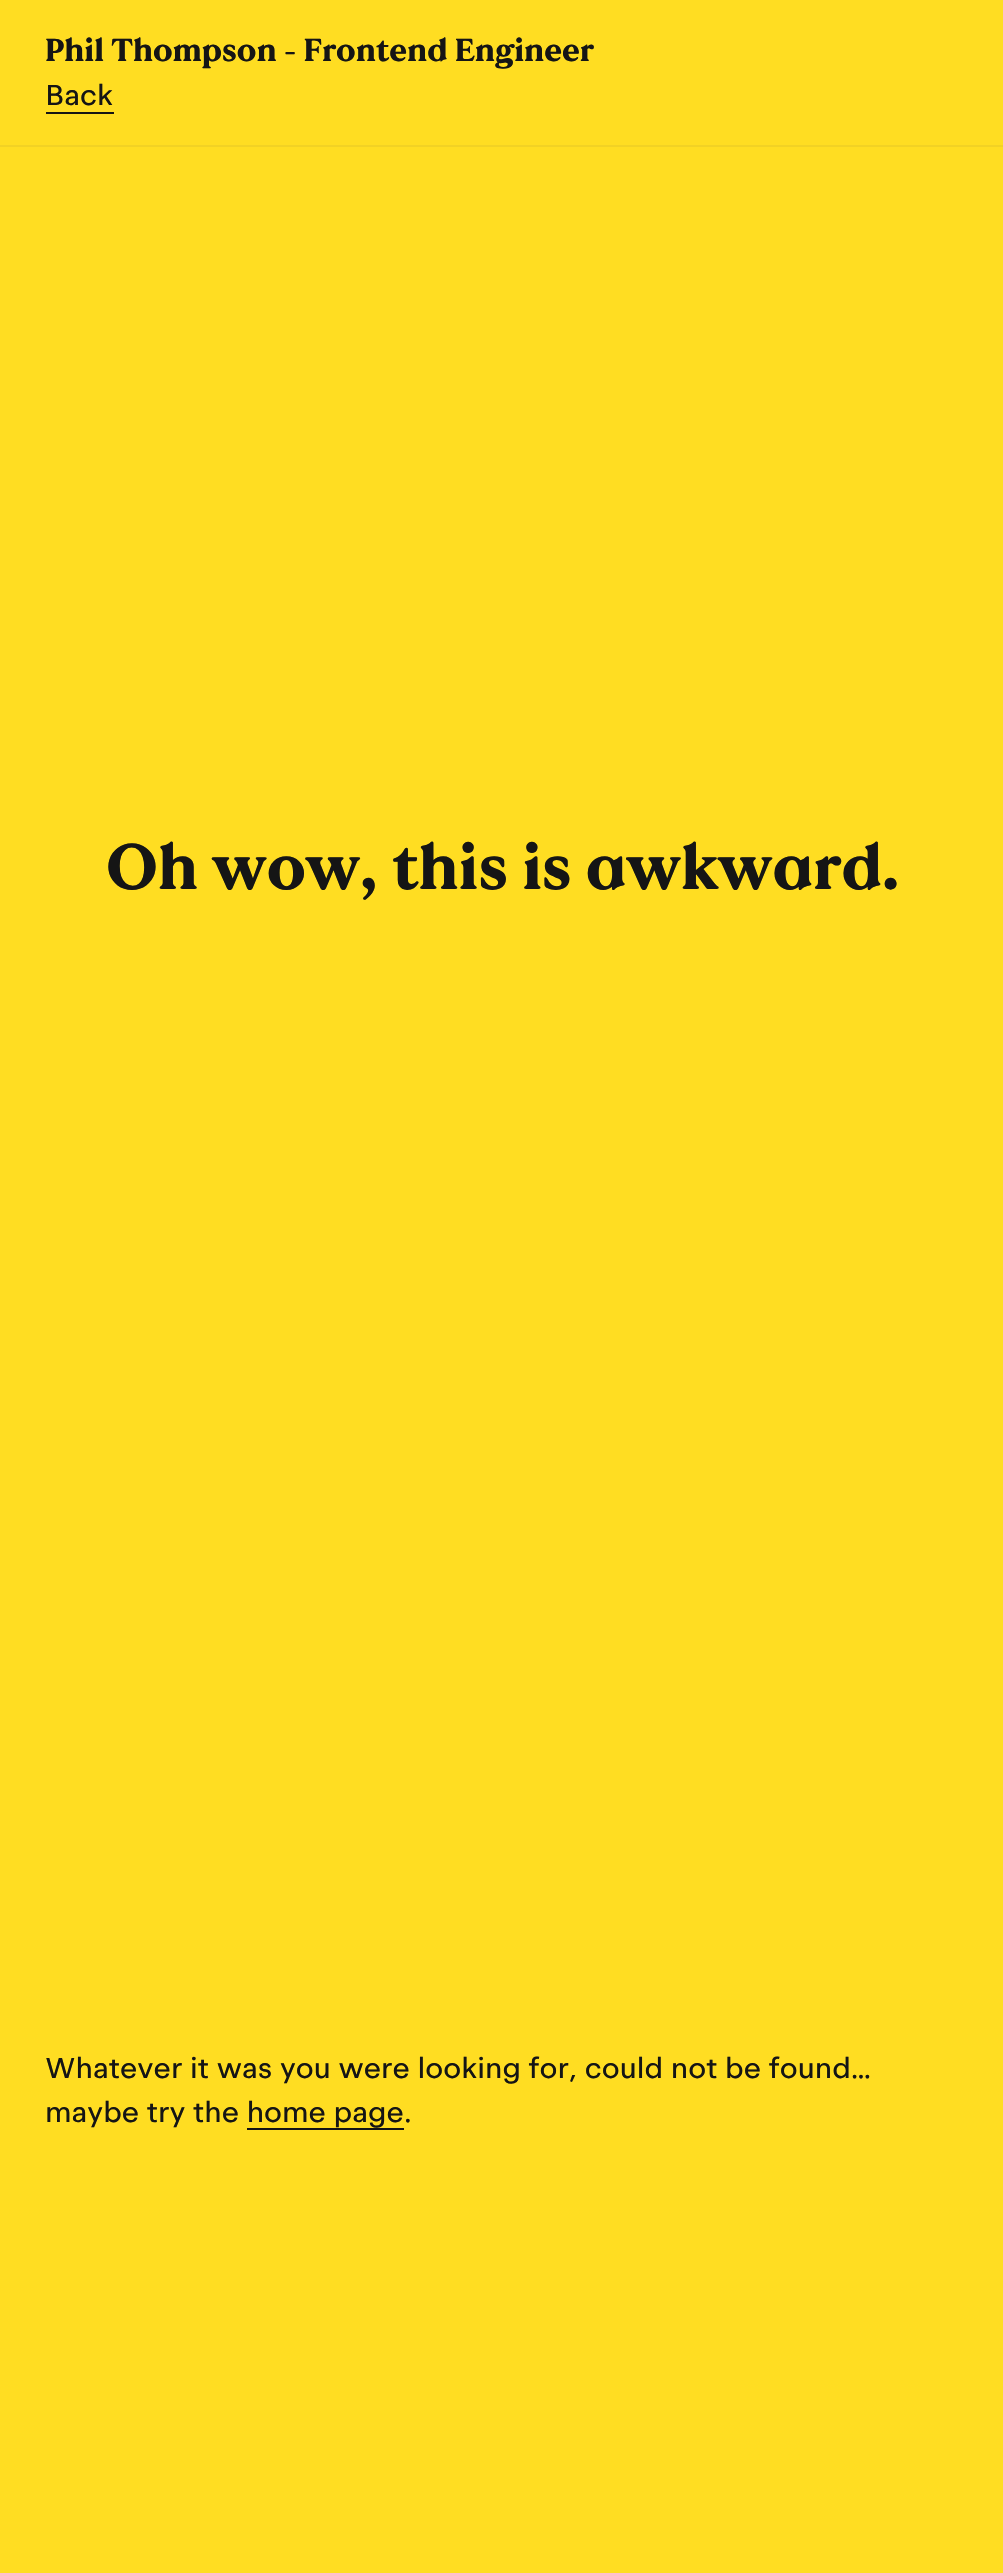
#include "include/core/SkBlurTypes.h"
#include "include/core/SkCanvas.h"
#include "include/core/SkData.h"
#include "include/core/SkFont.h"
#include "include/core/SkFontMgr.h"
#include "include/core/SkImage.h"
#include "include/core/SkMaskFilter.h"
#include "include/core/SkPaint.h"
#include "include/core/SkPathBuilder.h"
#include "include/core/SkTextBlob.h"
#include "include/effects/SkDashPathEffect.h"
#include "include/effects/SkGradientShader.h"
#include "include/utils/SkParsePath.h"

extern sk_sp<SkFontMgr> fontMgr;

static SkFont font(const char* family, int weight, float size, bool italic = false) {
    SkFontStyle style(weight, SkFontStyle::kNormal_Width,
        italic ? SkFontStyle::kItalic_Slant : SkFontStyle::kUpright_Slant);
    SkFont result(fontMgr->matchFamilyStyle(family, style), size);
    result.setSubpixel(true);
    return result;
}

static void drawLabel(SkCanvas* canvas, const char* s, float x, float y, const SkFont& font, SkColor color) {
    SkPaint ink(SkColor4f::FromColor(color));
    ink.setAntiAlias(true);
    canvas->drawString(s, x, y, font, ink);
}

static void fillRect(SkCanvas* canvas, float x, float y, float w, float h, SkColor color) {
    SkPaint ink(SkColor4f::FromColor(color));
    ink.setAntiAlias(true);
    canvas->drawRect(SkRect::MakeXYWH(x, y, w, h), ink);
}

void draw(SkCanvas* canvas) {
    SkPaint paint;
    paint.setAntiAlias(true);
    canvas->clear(0xFFFFDD22);
    fillRect(canvas, 0, 145, 1003, 2, 0xFFF2D224);
    SkFont font1 = font("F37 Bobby", 700, 31.5f);
    drawLabel(canvas, "Phil Thompson - Frontend Engineer", 45, 61, font1, 0xFF151515);
    SkFont font2 = font("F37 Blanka", 400, 31.5f);
    drawLabel(canvas, "Back", 45, 105, font2, 0xFF151515);
    fillRect(canvas, 46, 112, 68, 2, 0xFF151515);
    SkFont font3 = font("F37 Bobby", 700, 63);
    drawLabel(canvas, "Oh wow, this is awkward.", 106, 889, font3, 0xFF151515);
    drawLabel(canvas, "Whatever it was you were looking for, could not be found…", 45, 2078, font2, 0xFF151515);
    drawLabel(canvas, "maybe try the home page.", 45, 2122, font2, 0xFF151515);
    fillRect(canvas, 247, 2128, 157, 2, 0xFF151515);
}
